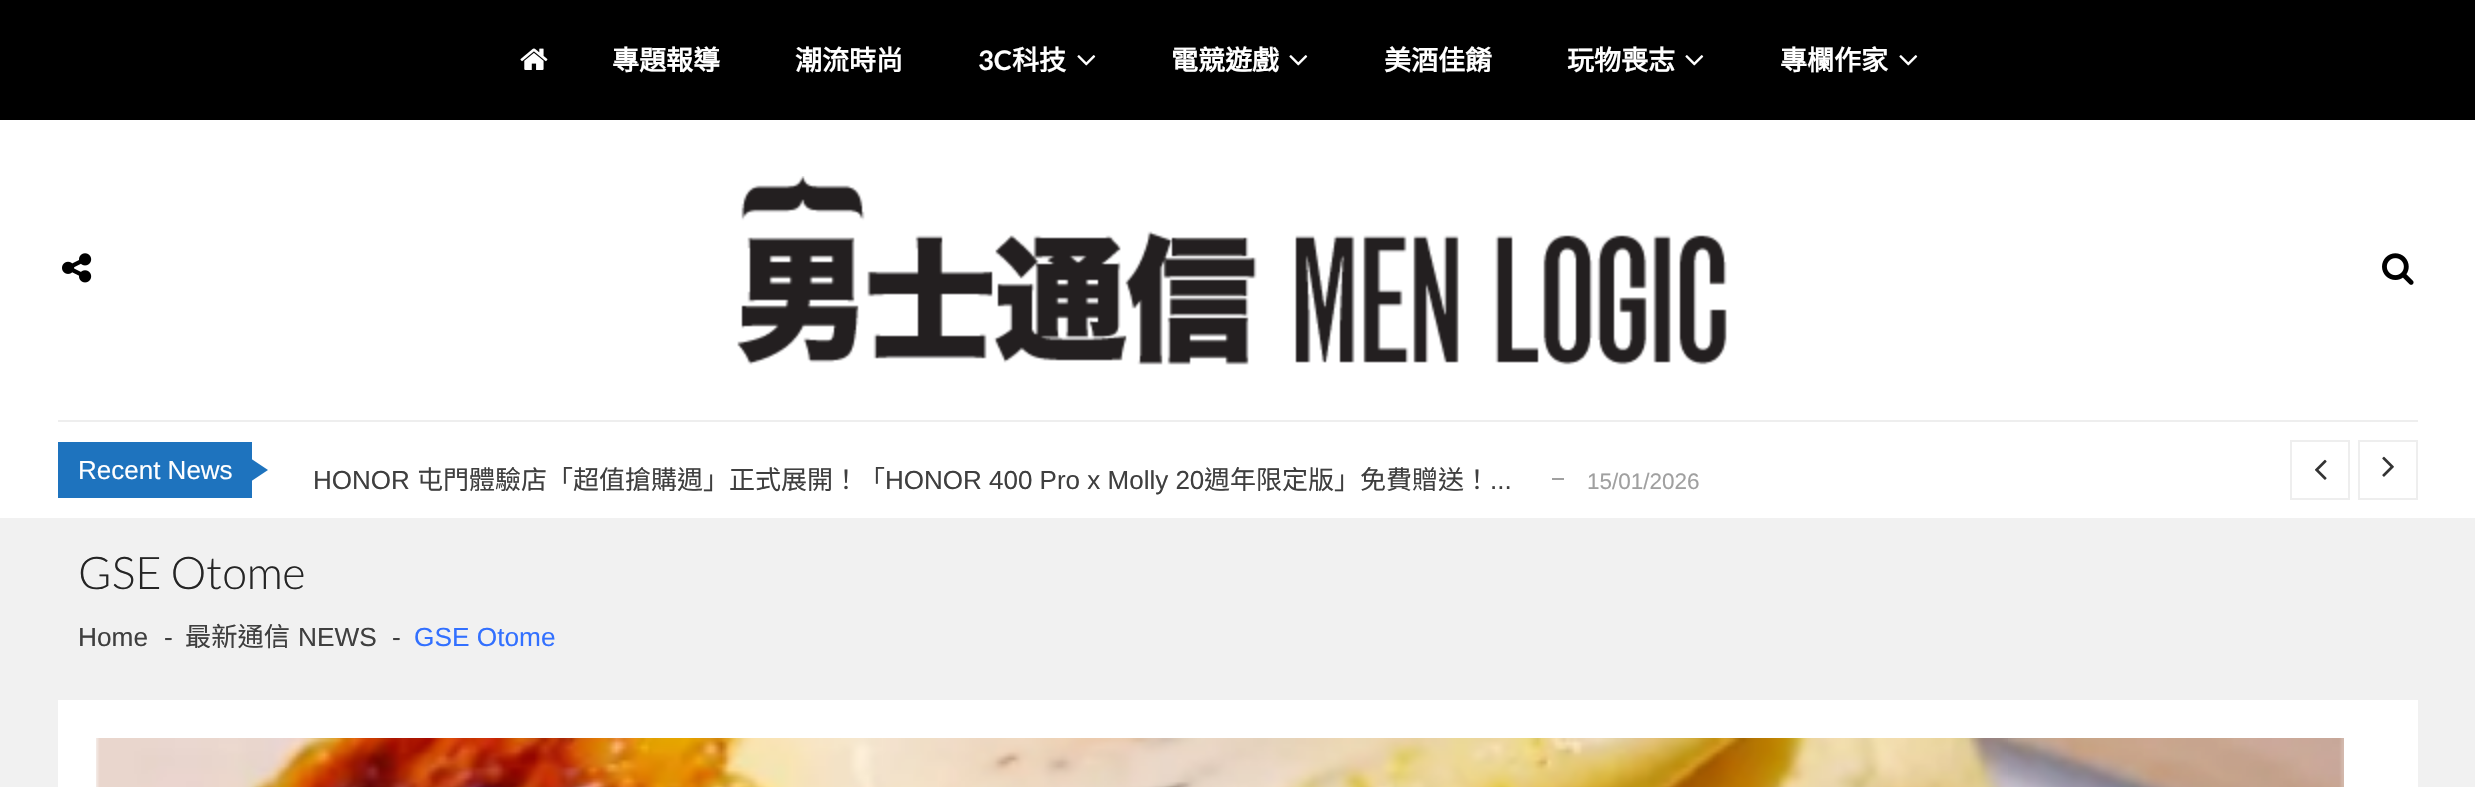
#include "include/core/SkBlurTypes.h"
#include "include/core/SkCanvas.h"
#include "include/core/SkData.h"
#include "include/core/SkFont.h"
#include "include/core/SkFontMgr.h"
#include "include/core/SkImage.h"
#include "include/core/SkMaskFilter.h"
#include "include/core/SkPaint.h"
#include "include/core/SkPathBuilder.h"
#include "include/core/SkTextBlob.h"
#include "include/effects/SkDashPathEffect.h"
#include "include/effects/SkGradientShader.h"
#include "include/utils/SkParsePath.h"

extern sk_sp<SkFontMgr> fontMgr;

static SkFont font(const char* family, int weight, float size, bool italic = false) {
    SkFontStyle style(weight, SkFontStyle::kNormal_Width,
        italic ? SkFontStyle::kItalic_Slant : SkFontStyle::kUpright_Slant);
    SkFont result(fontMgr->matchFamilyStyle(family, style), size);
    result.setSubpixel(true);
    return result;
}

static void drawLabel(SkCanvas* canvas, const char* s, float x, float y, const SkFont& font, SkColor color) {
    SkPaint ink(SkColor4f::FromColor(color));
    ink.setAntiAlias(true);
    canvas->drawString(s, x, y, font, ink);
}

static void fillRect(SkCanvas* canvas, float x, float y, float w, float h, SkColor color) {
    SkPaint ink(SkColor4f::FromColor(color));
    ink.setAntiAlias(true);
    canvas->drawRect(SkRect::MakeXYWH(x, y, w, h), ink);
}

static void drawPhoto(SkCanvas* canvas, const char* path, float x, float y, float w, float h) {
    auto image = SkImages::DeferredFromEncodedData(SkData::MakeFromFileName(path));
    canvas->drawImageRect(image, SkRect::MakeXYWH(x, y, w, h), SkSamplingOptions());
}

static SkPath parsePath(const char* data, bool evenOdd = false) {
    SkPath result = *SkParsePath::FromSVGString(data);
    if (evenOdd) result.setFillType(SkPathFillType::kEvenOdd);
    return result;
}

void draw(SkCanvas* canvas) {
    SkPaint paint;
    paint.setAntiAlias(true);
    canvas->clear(0xFFF1F1F1);
    fillRect(canvas, 0, 120, 2475, 398, 0xFFFFFFFF);
    fillRect(canvas, 0, 0, 2475, 120, 0xFF000000);
    drawPhoto(canvas, "assets/img1.png", 520, 48, 28, 22);
    SkFont font1 = font("Noto Sans CJK TC", 700, 27);
    drawLabel(canvas, "專題報導", 612, 70, font1, 0xFFFFFFFF);
    drawLabel(canvas, "潮流時尚", 795, 70, font1, 0xFFFFFFFF);
    SkFont font2 = font("Lato", 700, 27);
    drawLabel(canvas, "3C", 978, 70, font2, 0xFFFFFFFF);
    drawLabel(canvas, "科技", 1012, 70, font1, 0xFFFFFFFF);
    drawPhoto(canvas, "assets/img2.png", 1077, 55, 19, 11);
    drawLabel(canvas, "電競遊戲", 1171, 70, font1, 0xFFFFFFFF);
    drawPhoto(canvas, "assets/img2.png", 1289, 55, 19, 11);
    drawLabel(canvas, "美酒佳餚", 1384, 70, font1, 0xFFFFFFFF);
    drawLabel(canvas, "玩物喪志", 1567, 70, font1, 0xFFFFFFFF);
    drawPhoto(canvas, "assets/img2.png", 1685, 55, 19, 11);
    drawLabel(canvas, "專欄作家", 1780, 70, font1, 0xFFFFFFFF);
    drawPhoto(canvas, "assets/img2.png", 1899, 55, 19, 11);
    fillRect(canvas, 58, 420, 2360, 2, 0xFFEEEEEE);
    drawPhoto(canvas, "assets/img3.png", 62, 253, 30, 30);
    drawPhoto(canvas, "assets/img4.png", 737, 176, 990, 189);
    drawPhoto(canvas, "assets/img5.png", 2382, 253, 32, 32);
    fillRect(canvas, 58, 442, 194, 56, 0xFF1E73BE);
    SkFont font3 = font("Liberation Sans", 400, 26);
    drawLabel(canvas, "Recent News", 78, 479, font3, 0xFFFFFFFF);
    paint.setColor(0xFF1E73BE);
    canvas->drawPath(parsePath("M250 482V458L268 470Z"), paint);
    drawLabel(canvas, "HONOR", 313, 489, font3, 0xFF3F3F3F);
    SkFont font4 = font("Noto Sans CJK TC", 400, 26);
    drawLabel(canvas, "屯門體驗店「超值搶購週」正式展開！「", 417, 489, font4, 0xFF3F3F3F);
    drawLabel(canvas, "HONOR 400 Pro x Molly 20", 885, 489, font3, 0xFF3F3F3F);
    drawLabel(canvas, "週年限定版」免費贈送！", 1204, 489, font4, 0xFF3F3F3F);
    drawLabel(canvas, "...", 1490, 489, font3, 0xFF3F3F3F);
    fillRect(canvas, 1552, 478, 12, 2, 0xFFA0A0A0);
    SkFont font5 = font("Liberation Sans", 400, 22.5f);
    drawLabel(canvas, "15/01/2026", 1587, 489, font5, 0xFFA0A0A0);
    paint.setStroke(true);
    paint.setStrokeWidth(2);
    paint.setColor(0xFFEEEEEE);
    canvas->drawRect(SkRect::MakeXYWH(2291, 441, 58, 58), paint);
    drawPhoto(canvas, "assets/img6.png", 2315, 459, 12, 21);
    canvas->drawRect(SkRect::MakeXYWH(2359, 441, 58, 58), paint);
    drawPhoto(canvas, "assets/img7.png", 2382, 456, 12, 21);
    SkFont font6 = font("Lato", 300, 45);
    drawLabel(canvas, "GSE Otome", 78, 589, font6, 0xFF252525);
    SkFont font7 = font("Liberation Sans", 400, 26.25f);
    drawLabel(canvas, "Home", 78, 646, font7, 0xFF3F3F3F);
    drawLabel(canvas, "-", 164, 646, font7, 0xFF3F3F3F);
    SkFont font8 = font("Noto Sans CJK TC", 400, 26.25f);
    drawLabel(canvas, "最新通信", 185, 646, font8, 0xFF3F3F3F);
    drawLabel(canvas, "NEWS", 298, 646, font7, 0xFF3F3F3F);
    drawLabel(canvas, "-", 392, 646, font7, 0xFF3F3F3F);
    drawLabel(canvas, "GSE Otome", 414, 646, font7, 0xFF3270FF);
    fillRect(canvas, 58, 700, 2360, 87, 0xFFFFFFFF);
    drawPhoto(canvas, "assets/img8.png", 96, 738, 2248, 49);
}
